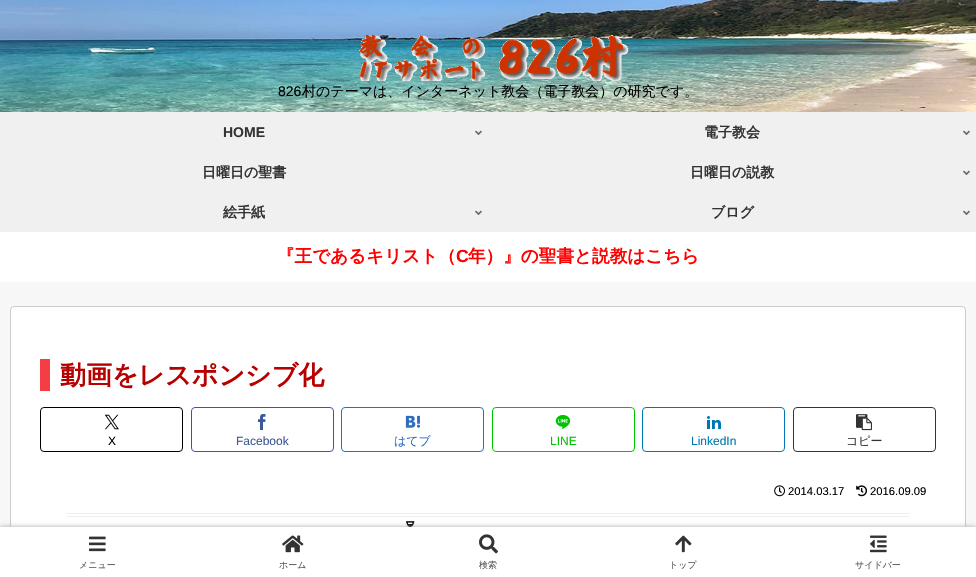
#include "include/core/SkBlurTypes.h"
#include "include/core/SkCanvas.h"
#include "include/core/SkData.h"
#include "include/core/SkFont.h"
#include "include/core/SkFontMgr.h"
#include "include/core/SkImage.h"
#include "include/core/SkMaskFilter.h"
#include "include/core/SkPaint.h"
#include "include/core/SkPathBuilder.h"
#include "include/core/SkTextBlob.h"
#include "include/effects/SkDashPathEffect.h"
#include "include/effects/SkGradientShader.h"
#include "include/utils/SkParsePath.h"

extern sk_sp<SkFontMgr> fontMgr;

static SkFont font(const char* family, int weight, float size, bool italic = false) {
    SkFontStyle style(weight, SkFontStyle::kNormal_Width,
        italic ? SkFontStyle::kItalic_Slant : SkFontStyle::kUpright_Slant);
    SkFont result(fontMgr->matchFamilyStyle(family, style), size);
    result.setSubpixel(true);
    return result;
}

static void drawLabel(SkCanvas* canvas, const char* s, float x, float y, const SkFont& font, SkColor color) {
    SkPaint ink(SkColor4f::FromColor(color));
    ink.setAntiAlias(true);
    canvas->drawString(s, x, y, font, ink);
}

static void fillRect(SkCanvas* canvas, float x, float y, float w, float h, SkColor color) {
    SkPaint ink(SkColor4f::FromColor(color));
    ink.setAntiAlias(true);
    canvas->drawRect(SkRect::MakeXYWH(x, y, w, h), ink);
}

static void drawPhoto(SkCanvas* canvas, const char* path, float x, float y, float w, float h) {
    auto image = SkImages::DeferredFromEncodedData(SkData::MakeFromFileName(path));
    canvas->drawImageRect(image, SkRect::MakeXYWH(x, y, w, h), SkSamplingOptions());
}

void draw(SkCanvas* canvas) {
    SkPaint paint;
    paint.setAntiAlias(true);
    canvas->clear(0xFFF7F7F7);
    drawPhoto(canvas, "assets/img1.png", 0, 0, 976, 112);
    drawPhoto(canvas, "assets/img2.png", 359, 35, 270, 46);
    SkFont font1 = font("Liberation Sans", 400, 14);
    drawLabel(canvas, "826", 278, 96, font1, 0xFF000000);
    SkFont font2 = font("WenQuanYi Zen Hei", 500, 14);
    drawLabel(canvas, "村のテーマは、インターネット教会（電子教会）の研究です。", 302, 96, font2, 0xFF000000);
    fillRect(canvas, 0, 112, 976, 120, 0xFFF0F0F0);
    SkFont font3 = font("Liberation Sans", 700, 14);
    drawLabel(canvas, "HOME", 223, 137, font3, 0xFF333333);
    drawPhoto(canvas, "assets/img3.png", 475, 130, 7, 5);
    SkFont font4 = font("WenQuanYi Zen Hei", 700, 14);
    drawLabel(canvas, "電子教会", 704, 137, font4, 0xFF333333);
    drawPhoto(canvas, "assets/img3.png", 963, 130, 7, 5);
    drawLabel(canvas, "日曜日の聖書", 202, 177, font4, 0xFF333333);
    drawLabel(canvas, "日曜日の説教", 690, 177, font4, 0xFF333333);
    drawPhoto(canvas, "assets/img3.png", 963, 170, 7, 5);
    drawLabel(canvas, "絵手紙", 223, 217, font4, 0xFF333333);
    drawPhoto(canvas, "assets/img3.png", 475, 210, 7, 5);
    drawLabel(canvas, "ブログ", 711, 217, font4, 0xFF333333);
    drawPhoto(canvas, "assets/img3.png", 963, 210, 7, 5);
    fillRect(canvas, 0, 232, 976, 50, 0xFFFFFFFF);
    SkFont font5 = font("WenQuanYi Zen Hei", 700, 17.6f);
    drawLabel(canvas, "『王であるキリスト（", 277, 262, font5, 0xFFFF0000);
    SkFont font6 = font("Liberation Sans", 700, 17.6f);
    drawLabel(canvas, "C", 456, 262, font6, 0xFFFF0000);
    drawLabel(canvas, "年）』の聖書と説教はこちら", 468, 262, font5, 0xFFFF0000);
    paint.setColor(0xFFFFFFFF);
    canvas->drawRoundRect(SkRect::MakeXYWH(10.5f, 306.5f, 955, 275), 3.5f, 3.5f, paint);
    paint.setStroke(true);
    paint.setStrokeWidth(1);
    paint.setColor(0xFFCCCCCC);
    canvas->drawRoundRect(SkRect::MakeXYWH(10.5f, 306.5f, 955, 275), 3.5f, 3.5f, paint);
    fillRect(canvas, 40, 359, 10, 32, 0xFFF43E43);
    SkFont font7 = font("WenQuanYi Zen Hei", 700, 26);
    drawLabel(canvas, "動画をレスポンシブ化", 60, 384, font7, 0xFFB70000);
    paint.setColor(0xFF000000);
    canvas->drawRoundRect(SkRect::MakeXYWH(40.5f, 407.5f, 142, 44), 3.5f, 3.5f, paint);
    drawPhoto(canvas, "assets/img4.png", 104, 414, 15, 16);
    SkFont font8 = font("Liberation Sans", 400, 12);
    drawLabel(canvas, "X", 108, 445, font8, 0xFF000000);
    paint.setColor(0xFF3B5998);
    canvas->drawRoundRect(SkRect::MakeXYWH(191.5f, 407.5f, 142, 44), 3.5f, 3.5f, paint);
    drawPhoto(canvas, "assets/img5.png", 258, 414, 8, 16);
    drawLabel(canvas, "Facebook", 236, 445, font8, 0xFF3B5998);
    paint.setColor(0xFF2C6EBD);
    canvas->drawRoundRect(SkRect::MakeXYWH(341.5f, 407.5f, 142, 44), 3.5f, 3.5f, paint);
    drawPhoto(canvas, "assets/img6.png", 405, 415, 16, 13);
    SkFont font9 = font("WenQuanYi Zen Hei", 500, 12);
    drawLabel(canvas, "はてブ", 394, 445, font9, 0xFF2C6EBD);
    paint.setColor(0xFF00C300);
    canvas->drawRoundRect(SkRect::MakeXYWH(492.5f, 407.5f, 142, 44), 3.5f, 3.5f, paint);
    drawPhoto(canvas, "assets/img7.png", 555, 415, 16, 14);
    drawLabel(canvas, "LINE", 550, 445, font8, 0xFF00C300);
    paint.setColor(0xFF0077B5);
    canvas->drawRoundRect(SkRect::MakeXYWH(642.5f, 407.5f, 142, 44), 3.5f, 3.5f, paint);
    drawPhoto(canvas, "assets/img8.png", 707, 416, 14, 13);
    drawLabel(canvas, "LinkedIn", 691, 445, font8, 0xFF0077B5);
    paint.setColor(0xFF333333);
    canvas->drawRoundRect(SkRect::MakeXYWH(793.5f, 407.5f, 142, 44), 3.5f, 3.5f, paint);
    drawPhoto(canvas, "assets/img9.png", 856, 414, 16, 17);
    drawLabel(canvas, "コピー", 846, 445, font9, 0xFF333333);
    drawPhoto(canvas, "assets/img10.png", 774, 485, 11, 12);
    SkFont font10 = font("Liberation Sans", 400, 11.25f);
    drawLabel(canvas, "2014.03.17", 788, 495, font10, 0xFF000000);
    drawPhoto(canvas, "assets/img11.png", 856, 485, 11, 12);
    drawLabel(canvas, "2016.09.09", 870, 495, font10, 0xFF000000);
    fillRect(canvas, 67, 513, 842, 1, 0xFFEEEEEE);
    fillRect(canvas, 67, 516, 842, 1, 0xFFEEEEEE);
    drawPhoto(canvas, "assets/img12.png", 406, 521, 9, 6);
    paint.setStroke(false);
    paint.setColor(0xFFA9A9A9);
    paint.setMaskFilter(SkMaskFilter::MakeBlur(kNormal_SkBlurStyle, 2.5f));
    canvas->drawRect(SkRect::MakeXYWH(0, 527, 976, 50), paint);
    paint.setMaskFilter(nullptr);
    fillRect(canvas, 0, 527, 976, 50, 0xFFFFFFFF);
    drawPhoto(canvas, "assets/img13.png", 89, 536, 17, 16);
    SkFont font11 = font("WenQuanYi Zen Hei", 500, 9);
    drawLabel(canvas, "メニュー", 79, 568, font11, 0xFF5C5C5C);
    drawPhoto(canvas, "assets/img14.png", 282, 535, 22, 18);
    drawLabel(canvas, "ホーム", 279, 568, font11, 0xFF5C5C5C);
    drawPhoto(canvas, "assets/img15.png", 479, 534, 19, 20);
    drawLabel(canvas, "検索", 479, 568, font11, 0xFF5C5C5C);
    drawPhoto(canvas, "assets/img16.png", 675, 535, 17, 18);
    drawLabel(canvas, "トップ", 669, 568, font11, 0xFF5C5C5C);
    drawPhoto(canvas, "assets/img17.png", 870, 535, 17, 18);
    drawLabel(canvas, "サイドバー", 855, 568, font11, 0xFF5C5C5C);
}
